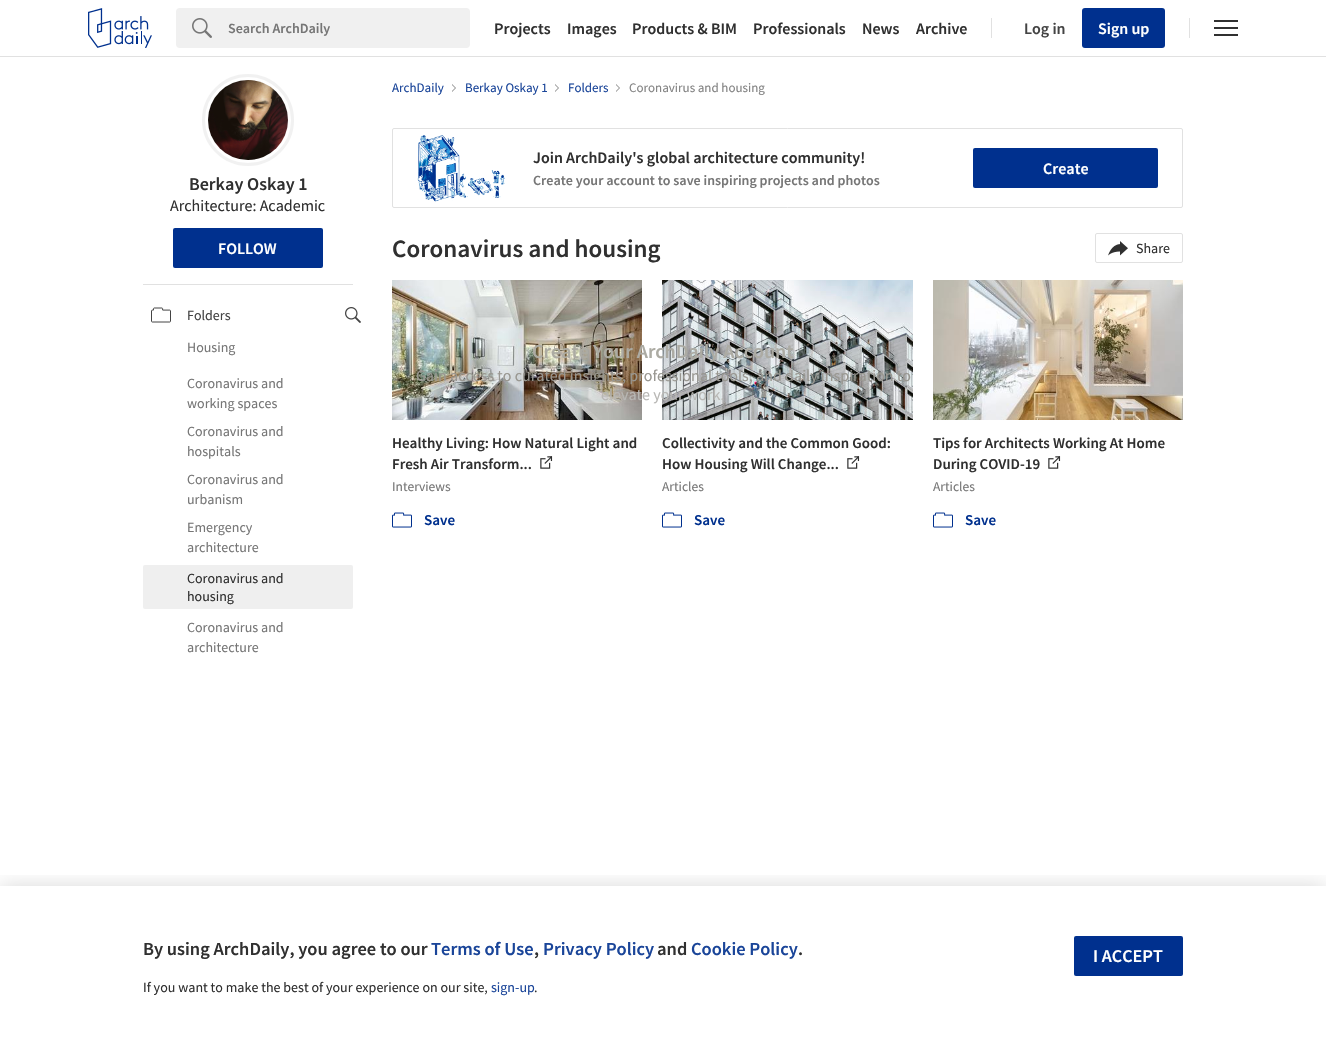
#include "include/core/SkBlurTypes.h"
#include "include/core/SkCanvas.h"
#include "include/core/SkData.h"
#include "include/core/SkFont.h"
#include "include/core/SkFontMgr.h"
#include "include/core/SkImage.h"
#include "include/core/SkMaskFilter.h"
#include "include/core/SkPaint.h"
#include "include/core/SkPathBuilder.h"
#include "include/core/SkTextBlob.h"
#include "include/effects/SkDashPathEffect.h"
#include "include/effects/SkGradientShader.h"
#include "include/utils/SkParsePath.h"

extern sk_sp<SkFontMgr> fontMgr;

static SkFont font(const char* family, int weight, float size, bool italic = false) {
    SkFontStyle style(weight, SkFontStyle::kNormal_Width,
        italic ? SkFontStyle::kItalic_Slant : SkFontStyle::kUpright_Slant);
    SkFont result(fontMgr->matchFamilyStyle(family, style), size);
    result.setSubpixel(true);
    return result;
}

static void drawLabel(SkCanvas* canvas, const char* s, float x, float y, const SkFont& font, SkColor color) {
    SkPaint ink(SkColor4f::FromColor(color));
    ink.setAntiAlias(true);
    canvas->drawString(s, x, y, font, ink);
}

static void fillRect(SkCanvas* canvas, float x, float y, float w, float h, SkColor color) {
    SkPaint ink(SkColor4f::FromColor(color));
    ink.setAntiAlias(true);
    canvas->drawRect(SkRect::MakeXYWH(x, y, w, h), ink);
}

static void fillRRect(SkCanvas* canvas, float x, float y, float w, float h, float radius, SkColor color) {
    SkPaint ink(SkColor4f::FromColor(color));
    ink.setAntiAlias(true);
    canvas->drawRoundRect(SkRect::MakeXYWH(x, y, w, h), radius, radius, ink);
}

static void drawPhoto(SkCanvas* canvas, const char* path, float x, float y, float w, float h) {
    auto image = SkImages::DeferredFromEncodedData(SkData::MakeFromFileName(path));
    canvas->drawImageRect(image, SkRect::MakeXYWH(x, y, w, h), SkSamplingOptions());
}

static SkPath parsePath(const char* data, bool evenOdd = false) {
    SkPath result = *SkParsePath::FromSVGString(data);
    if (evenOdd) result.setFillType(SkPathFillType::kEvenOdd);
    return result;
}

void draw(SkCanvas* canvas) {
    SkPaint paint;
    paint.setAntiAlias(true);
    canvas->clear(0xFFFFFFFF);
    fillRect(canvas, 0, 56, 1326, 1, 0xFFE1E1E1);
    drawPhoto(canvas, "assets/img1.png", 88, 8, 64, 40);
    fillRRect(canvas, 176, 8, 294, 40, 4, 0xFFF0F0F0);
    drawPhoto(canvas, "assets/img2.png", 192, 18, 20, 20);
    SkFont font1 = font("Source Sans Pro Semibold", 600, 14);
    drawLabel(canvas, "Search ArchDaily", 228, 33, font1, 0xFF767676);
    SkFont font2 = font("Source Sans Pro Semibold", 600, 16);
    drawLabel(canvas, "Projects", 494, 34, font2, 0xFF303030);
    drawLabel(canvas, "Images", 567, 34, font2, 0xFF303030);
    drawLabel(canvas, "Products & BIM", 632, 34, font2, 0xFF303030);
    drawLabel(canvas, "Professionals", 753, 34, font2, 0xFF303030);
    drawLabel(canvas, "News", 862, 34, font2, 0xFF303030);
    drawLabel(canvas, "Archive", 916, 34, font2, 0xFF303030);
    fillRect(canvas, 991, 18, 1, 20, 0xFFE1E1E1);
    drawLabel(canvas, "Log in", 1024, 34, font2, 0xFF444444);
    fillRRect(canvas, 1082, 8, 83, 40, 3, 0xFF00308E);
    drawLabel(canvas, "Sign up", 1098, 34, font2, 0xFFFFFFFF);
    fillRect(canvas, 1189, 18, 1, 20, 0xFFE1E1E1);
    fillRect(canvas, 1214, 27, 24, 2, 0xFF303030);
    fillRect(canvas, 1214, 20, 24, 2, 0xFF303030);
    fillRect(canvas, 1214, 34, 24, 2, 0xFF303030);
    canvas->save();
    canvas->clipRect(SkRect::MakeXYWH(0, 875, 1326, 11));
    paint.setColor(0x26000000);
    paint.setMaskFilter(SkMaskFilter::MakeBlur(kNormal_SkBlurStyle, 10));
    canvas->drawRect(SkRect::MakeXYWH(0, 886, 1326, 158), paint);
    paint.setMaskFilter(nullptr);
    canvas->restore();
    SkFont font3 = font("Source Sans Pro Semibold", 600, 18.4f);
    drawLabel(canvas, "By using ArchDaily, you agree to our", 143, 955, font3, 0xFF303030);
    drawLabel(canvas, "Terms of Use", 431, 955, font3, 0xFF1A4599);
    drawLabel(canvas, ",", 534, 955, font3, 0xFF303030);
    drawLabel(canvas, "Privacy Policy", 543, 955, font3, 0xFF1A4599);
    drawLabel(canvas, "and", 657, 955, font3, 0xFF303030);
    drawLabel(canvas, "Cookie Policy", 691, 955, font3, 0xFF1A4599);
    drawLabel(canvas, ".", 798, 955, font3, 0xFF303030);
    SkFont font4 = font("Source Sans Pro", 400, 14);
    drawLabel(canvas, "If you want to make the best of your experience on our site,", 143, 992, font4, 0xFF303030);
    drawLabel(canvas, "sign-up", 491, 992, font4, 0xFF1A4599);
    drawLabel(canvas, ".", 534, 992, font4, 0xFF303030);
    fillRRect(canvas, 1074, 936, 109, 40, 2, 0xFF00308E);
    SkFont font5 = font("Source Sans Pro Semibold", 600, 18);
    drawLabel(canvas, "I ACCEPT", 1093, 962, font5, 0xFFFFFFFF);
    paint.setStroke(true);
    paint.setStrokeWidth(6);
    paint.setColor(0xFFF1F1F1);
    canvas->drawCircle(248, 120, 43, paint);
    paint.setStrokeWidth(3);
    paint.setColor(0xFFFFFFFF);
    canvas->drawCircle(248, 120, 41.5f, paint);
    drawPhoto(canvas, "assets/img3.png", 208, 80, 80, 80);
    drawLabel(canvas, "Berkay Oskay 1", 189, 190, font5, 0xFF303030);
    SkFont font6 = font("Source Sans Pro", 400, 16);
    drawLabel(canvas, "Architecture: Academic", 170, 211, font6, 0xFF303030);
    fillRRect(canvas, 173, 228, 150, 40, 2, 0xFF00308E);
    drawLabel(canvas, "FOLLOW", 218, 254, font2, 0xFFFFFFFF);
    fillRect(canvas, 143, 284, 210, 1, 0xFFE1E1E1);
    drawPhoto(canvas, "assets/img4.png", 151, 307, 20, 16);
    drawLabel(canvas, "Folders", 187, 320, font4, 0xFF444444);
    drawPhoto(canvas, "assets/img5.png", 345, 307, 16, 16);
    drawLabel(canvas, "Housing", 187, 352, font4, 0xFF767676);
    drawLabel(canvas, "Coronavirus and", 187, 388, font4, 0xFF767676);
    drawLabel(canvas, "working spaces", 187, 408, font4, 0xFF767676);
    drawLabel(canvas, "Coronavirus and", 187, 436, font4, 0xFF767676);
    drawLabel(canvas, "hospitals", 187, 456, font4, 0xFF767676);
    drawLabel(canvas, "Coronavirus and", 187, 484, font4, 0xFF767676);
    drawLabel(canvas, "urbanism", 187, 504, font4, 0xFF767676);
    drawLabel(canvas, "Emergency", 187, 532, font4, 0xFF767676);
    drawLabel(canvas, "architecture", 187, 552, font4, 0xFF767676);
    fillRRect(canvas, 143, 565, 210, 44, 2, 0xFFEFEFEF);
    drawLabel(canvas, "Coronavirus and", 187, 583, font4, 0xFF303030);
    drawLabel(canvas, "housing", 187, 601, font4, 0xFF303030);
    drawLabel(canvas, "Coronavirus and", 187, 632, font4, 0xFF767676);
    drawLabel(canvas, "architecture", 187, 652, font4, 0xFF767676);
    SkFont font7 = font("Source Sans Pro", 400, 13);
    drawLabel(canvas, "ArchDaily", 392, 92, font7, 0xFF1A4599);
    paint.setStroke(false);
    paint.setColor(0xFF828282);
    canvas->drawPath(parsePath("M452 92V84L456 88Z"), paint);
    paint.setColor(0xFFFFFFFF);
    canvas->drawPath(parsePath("M451 92V84L455 88Z"), paint);
    drawLabel(canvas, "Berkay Oskay 1", 465, 92, font7, 0xFF1A4599);
    paint.setColor(0xFF828282);
    canvas->drawPath(parsePath("M555 92V84L559 88Z"), paint);
    paint.setColor(0xFFFFFFFF);
    canvas->drawPath(parsePath("M554 92V84L558 88Z"), paint);
    drawLabel(canvas, "Folders", 568, 92, font7, 0xFF1A4599);
    paint.setColor(0xFF828282);
    canvas->drawPath(parsePath("M616 92V84L620 88Z"), paint);
    paint.setColor(0xFFFFFFFF);
    canvas->drawPath(parsePath("M615 92V84L619 88Z"), paint);
    drawLabel(canvas, "Coronavirus and housing", 629, 92, font7, 0xFF828282);
    paint.setStroke(true);
    paint.setStrokeWidth(1);
    paint.setColor(0xFFE1E1E1);
    canvas->drawRoundRect(SkRect::MakeXYWH(392.5f, 128.5f, 790, 79), 1.5f, 1.5f, paint);
    drawPhoto(canvas, "assets/img6.png", 417, 135, 88, 67);
    drawLabel(canvas, "Join ArchDaily's global architecture community!", 533, 163, font2, 0xFF303030);
    drawLabel(canvas, "Create your account to save inspiring projects and photos", 533, 185, font1, 0xFF767676);
    fillRRect(canvas, 973, 148, 185, 40, 2, 0xFF00308E);
    drawLabel(canvas, "Create", 1043, 174, font2, 0xFFFFFFFF);
    SkFont font8 = font("Source Sans Pro Semibold", 600, 25);
    drawLabel(canvas, "Coronavirus and housing", 392, 257, font8, 0xFF303030);
    canvas->drawRoundRect(SkRect::MakeXYWH(1095.5f, 233.5f, 87, 29), 1.5f, 1.5f, paint);
    drawPhoto(canvas, "assets/img7.png", 1108, 241, 20, 15);
    drawLabel(canvas, "Share", 1136, 253, font4, 0xFF303030);
    drawPhoto(canvas, "assets/img8.png", 392, 280, 250, 140);
    SkFont font9 = font("Source Sans Pro Semibold", 600, 15);
    drawLabel(canvas, "Healthy Living: How Natural Light and", 392, 448, font9, 0xFF303030);
    drawLabel(canvas, "Fresh Air Transform...", 392, 469, font9, 0xFF303030);
    drawPhoto(canvas, "assets/img9.png", 540, 456, 13, 13);
    SkFont font10 = font("Source Sans Pro", 400, 13.5f);
    drawLabel(canvas, "Interviews", 392, 491, font10, 0xFF767676);
    drawPhoto(canvas, "assets/img10.png", 392, 512, 20, 16);
    drawLabel(canvas, "Save", 424, 525, font9, 0xFF00308E);
    drawPhoto(canvas, "assets/img11.png", 662, 280, 251, 140);
    drawLabel(canvas, "Collectivity and the Common Good:", 662, 448, font9, 0xFF303030);
    drawLabel(canvas, "How Housing Will Change...", 662, 469, font9, 0xFF303030);
    drawPhoto(canvas, "assets/img9.png", 847, 456, 13, 13);
    drawLabel(canvas, "Articles", 662, 491, font10, 0xFF767676);
    drawPhoto(canvas, "assets/img10.png", 662, 512, 20, 16);
    drawLabel(canvas, "Save", 694, 525, font9, 0xFF00308E);
    drawPhoto(canvas, "assets/img12.png", 933, 280, 250, 140);
    drawLabel(canvas, "Tips for Architects Working At Home", 933, 448, font9, 0xFF303030);
    drawLabel(canvas, "During COVID-19", 933, 469, font9, 0xFF303030);
    drawPhoto(canvas, "assets/img9.png", 1048, 456, 13, 13);
    drawLabel(canvas, "Articles", 933, 491, font10, 0xFF767676);
    drawPhoto(canvas, "assets/img10.png", 933, 512, 20, 16);
    drawLabel(canvas, "Save", 965, 525, font9, 0xFF00308E);
    SkFont font11 = font("Source Sans Pro Semibold", 600, 20);
    drawLabel(canvas, "Create Your ArchDaily Account", 532, 358, font11, 0xFFACABA3);
    drawLabel(canvas, "Gain access to curated insights, professional tools, and daily inspiration to", 416, 381, font6, 0xFF999791);
    drawLabel(canvas, "elevate your work.", 601, 400, font6, 0xFFB8B7B4);
}
